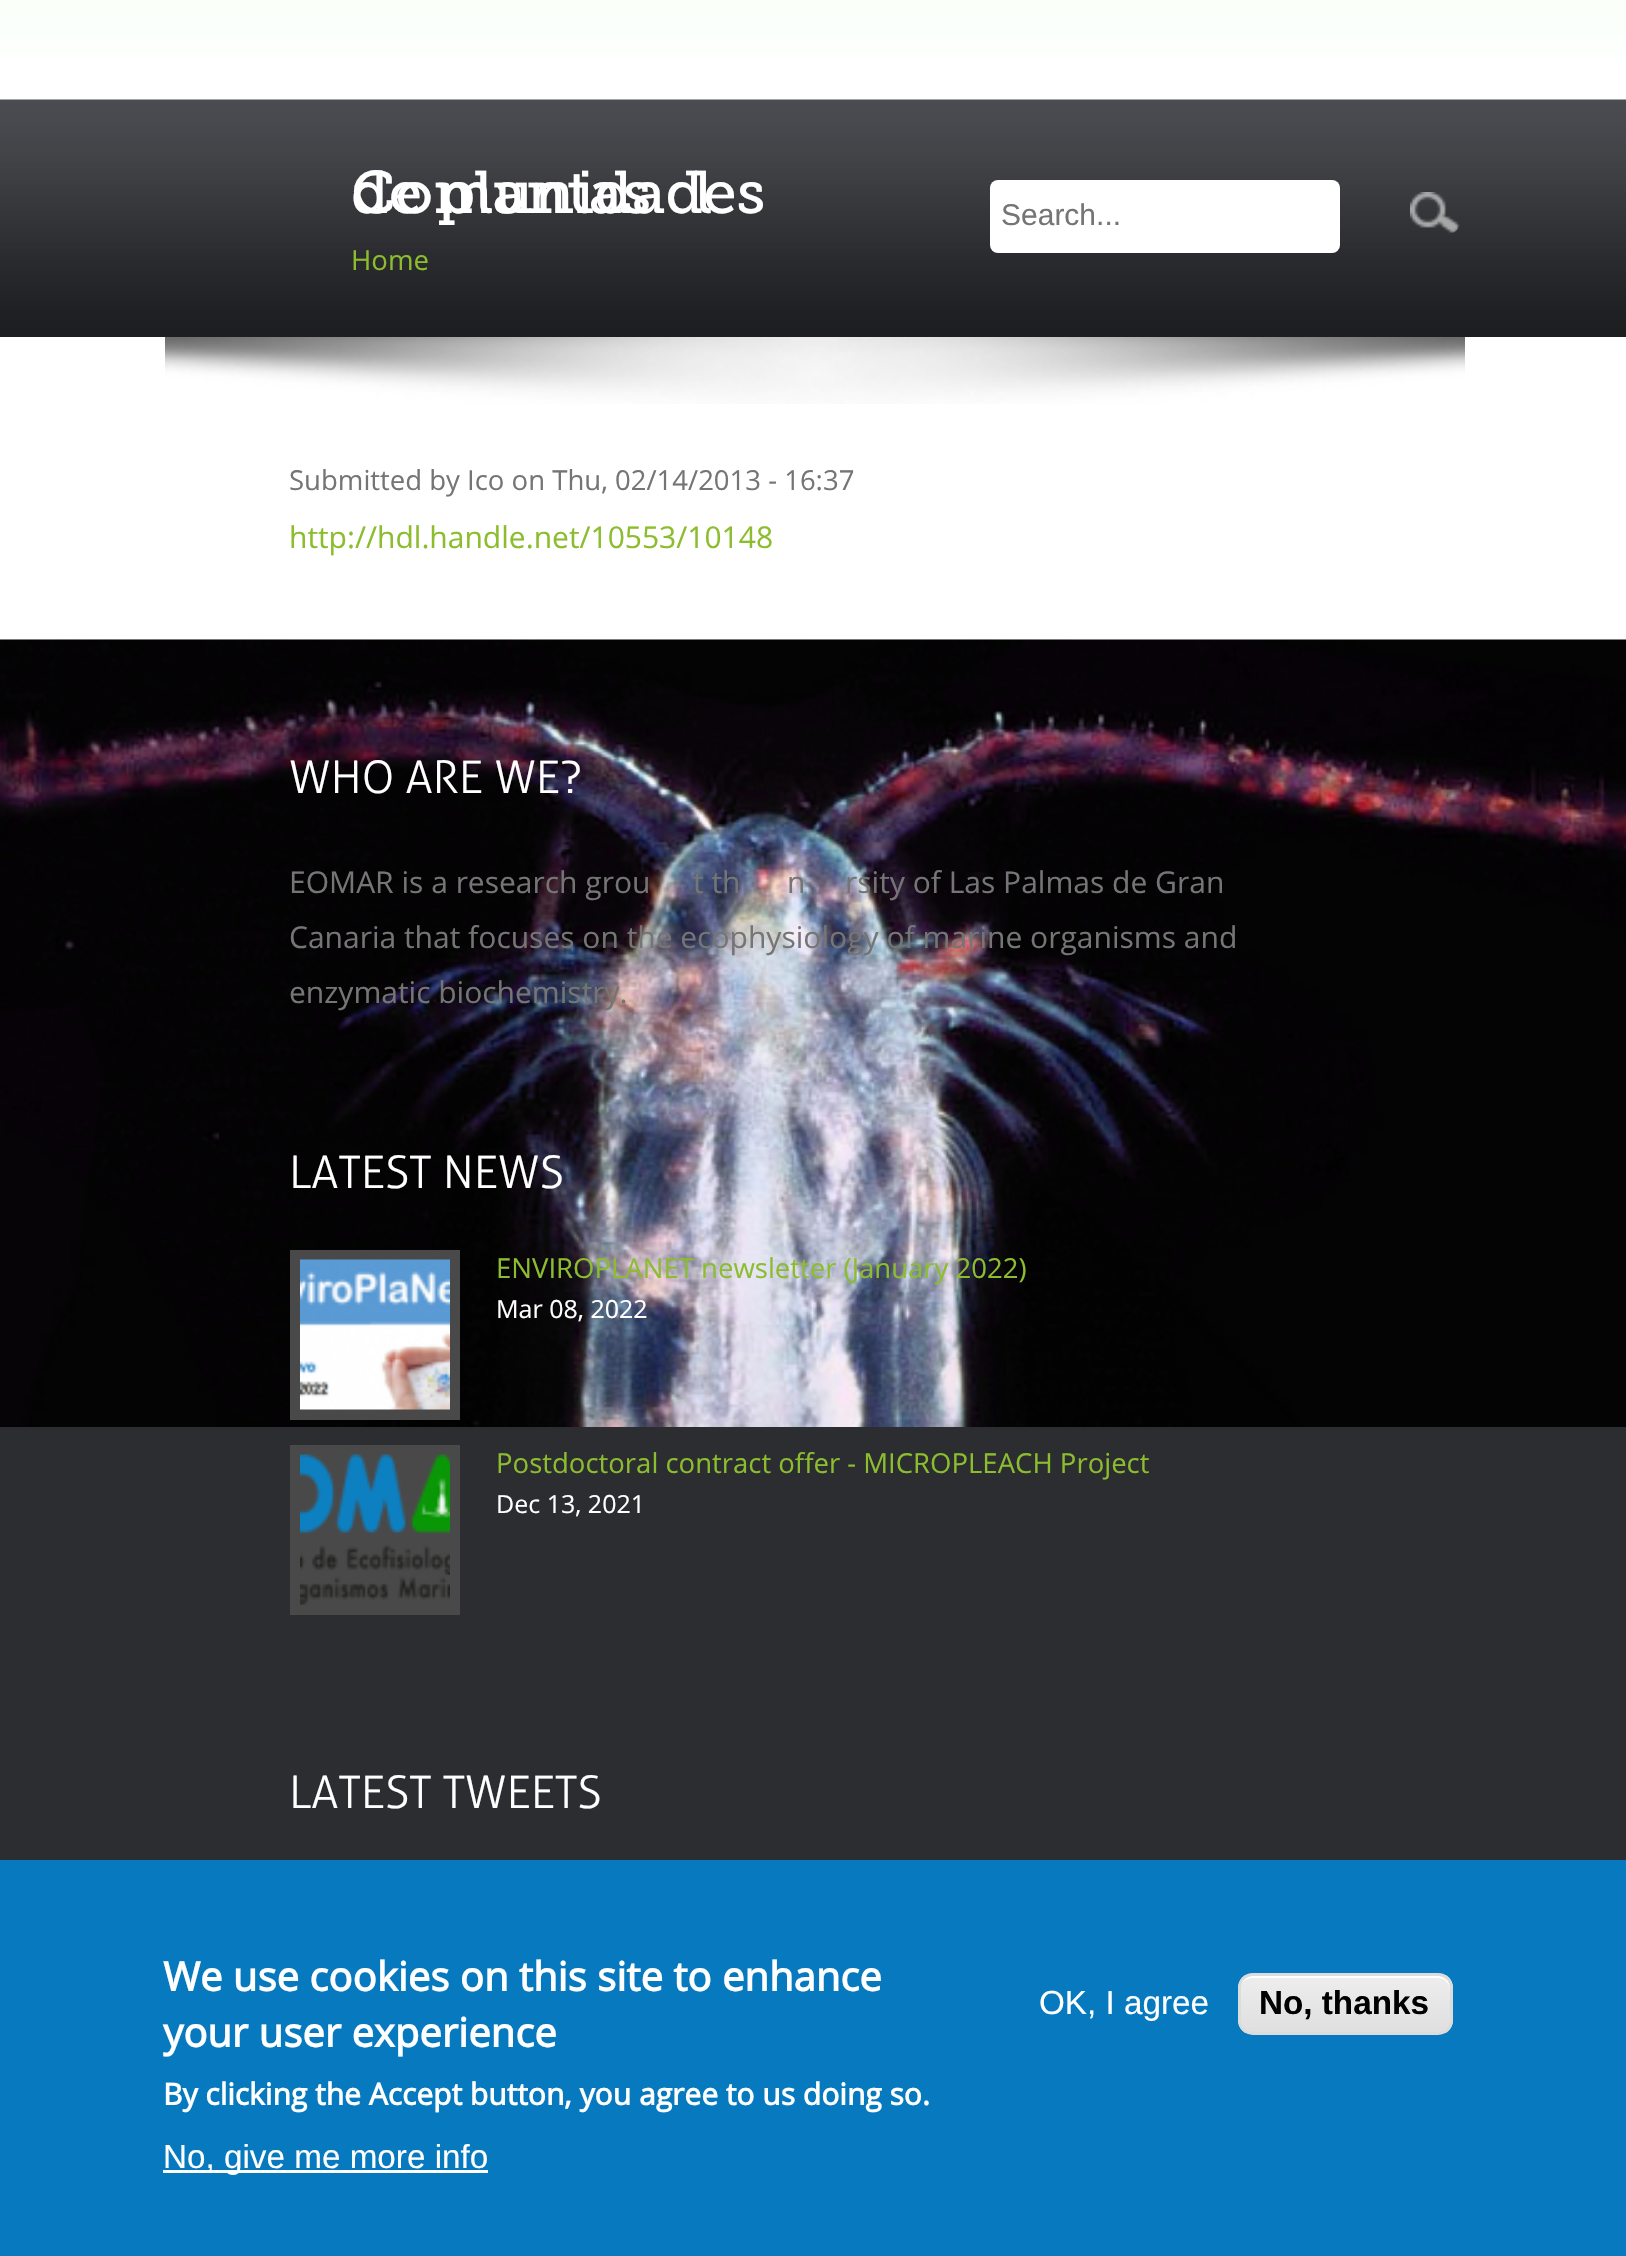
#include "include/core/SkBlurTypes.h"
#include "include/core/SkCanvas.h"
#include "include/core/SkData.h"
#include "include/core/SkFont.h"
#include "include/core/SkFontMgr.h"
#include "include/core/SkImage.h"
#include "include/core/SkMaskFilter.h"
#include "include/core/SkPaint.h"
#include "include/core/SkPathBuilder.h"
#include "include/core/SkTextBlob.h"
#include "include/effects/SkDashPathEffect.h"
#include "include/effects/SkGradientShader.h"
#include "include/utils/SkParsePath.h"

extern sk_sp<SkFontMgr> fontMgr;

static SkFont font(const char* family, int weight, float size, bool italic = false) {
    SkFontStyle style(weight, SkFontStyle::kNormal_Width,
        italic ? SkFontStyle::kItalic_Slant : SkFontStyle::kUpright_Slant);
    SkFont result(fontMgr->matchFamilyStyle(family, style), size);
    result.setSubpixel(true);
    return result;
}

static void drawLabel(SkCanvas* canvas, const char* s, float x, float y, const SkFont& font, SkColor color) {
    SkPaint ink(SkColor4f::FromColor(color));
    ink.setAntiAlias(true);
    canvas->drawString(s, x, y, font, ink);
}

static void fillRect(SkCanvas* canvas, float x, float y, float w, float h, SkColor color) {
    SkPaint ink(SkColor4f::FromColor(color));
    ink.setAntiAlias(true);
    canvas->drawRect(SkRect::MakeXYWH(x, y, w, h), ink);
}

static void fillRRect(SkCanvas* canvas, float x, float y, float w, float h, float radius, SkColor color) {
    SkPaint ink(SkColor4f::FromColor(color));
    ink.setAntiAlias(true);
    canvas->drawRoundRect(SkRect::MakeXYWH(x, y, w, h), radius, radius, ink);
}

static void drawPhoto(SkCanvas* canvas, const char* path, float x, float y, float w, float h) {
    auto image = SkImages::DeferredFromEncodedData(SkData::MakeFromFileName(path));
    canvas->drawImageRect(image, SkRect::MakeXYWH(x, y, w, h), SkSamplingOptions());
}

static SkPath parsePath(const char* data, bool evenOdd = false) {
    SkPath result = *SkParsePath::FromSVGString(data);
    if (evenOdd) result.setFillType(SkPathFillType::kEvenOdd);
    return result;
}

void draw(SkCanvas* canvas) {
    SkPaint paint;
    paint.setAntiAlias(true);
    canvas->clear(0xFFFFFFFF);
    {
        const SkColor colors[] = {0xFFF0FFF0, 0xFFFFFFFF};
        const float stops[] = {0, 1};
        const SkPoint ends[] = {{814, -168}, {814, 100}};
        paint.setShader(SkGradientShader::MakeLinear(ends, colors, stops, 2, SkTileMode::kClamp));
        paint.setAlpha(255);
    }
    canvas->drawRect(SkRect::MakeXYWH(0, 0, 1626, 55), paint);
    drawPhoto(canvas, "assets/img1.png", 0, 99, 1626, 238);
    SkFont font1 = font("Museo Slab", 400, 60);
    drawLabel(canvas, "Comunidades", 351, 213, font1, 0xFFFFFFFF);
    drawLabel(canvas, "de plantas", 351, 213, font1, 0xFFFFFFFF);
    drawLabel(canvas, "l", 695, 213, font1, 0xFFFFFFFF);
    SkFont font2 = font("Open Sans", 400, 27.5f);
    drawLabel(canvas, "Home", 351, 270, font2, 0xFF8CBD2E);
    fillRRect(canvas, 990, 180, 350, 73, 8, 0xFFFFFFFF);
    SkFont font3 = font("Liberation Sans", 400, 30);
    drawLabel(canvas, "Search...", 1001, 225, font3, 0xFF757575);
    drawPhoto(canvas, "assets/img2.png", 1410, 192, 50, 41);
    drawPhoto(canvas, "assets/img3.png", 165, 337, 1300, 67);
    drawLabel(canvas, "Submitted by Ico on Thu, 02/14/2013 - 16:37", 289, 490, font2, 0xFF757575);
    SkFont font4 = font("Open Sans", 400, 30);
    drawLabel(canvas, "http://hdl.handle.net/10553/10148", 289, 548, font4, 0xFF8CBD2E);
    fillRect(canvas, 0, 1427, 1626, 433, 0xFF2B2D30);
    drawPhoto(canvas, "assets/img4.png", 0, 639, 1626, 788);
    drawPhoto(canvas, "assets/img5.png", 0, 639, 1070, 1);
    SkFont font5 = font("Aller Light", 300, 45);
    drawLabel(canvas, "WHO ARE WE?", 289, 793, font5, 0xFFFFFFFF);
    drawLabel(canvas, "EOMAR is a research grou", 289, 893, font4, 0xFF757575);
    drawLabel(canvas, "t th", 693, 893, font4, 0xFF757575);
    drawLabel(canvas, "n", 787, 893, font4, 0xFF757575);
    drawLabel(canvas, "rsity of Las Palmas de Gran", 845, 893, font4, 0xFF757575);
    drawLabel(canvas, "Canaria that focuses on the ecophysiology of marine organisms and", 289, 948, font4, 0xFF757575);
    drawLabel(canvas, "enzymatic biochemistry.", 289, 1003, font4, 0xFF757575);
    drawLabel(canvas, "LATEST NEWS", 289, 1188, font5, 0xFFFFFFFF);
    fillRect(canvas, 290, 1250, 170, 170, 0xFF494949);
    drawPhoto(canvas, "assets/img6.png", 300, 1259, 150, 151);
    drawLabel(canvas, "ENVIROPLANET newsletter (January 2022)", 496, 1278, font2, 0xFF8CBD2E);
    SkFont font6 = font("Open Sans", 400, 25);
    drawLabel(canvas, "Mar 08, 2022", 496, 1318, font6, 0xFFFFFFFF);
    fillRect(canvas, 290, 1445, 170, 170, 0xFF494949);
    drawPhoto(canvas, "assets/img7.png", 300, 1454, 150, 151);
    drawLabel(canvas, "Postdoctoral contract offer - MICROPLEACH Project", 496, 1473, font2, 0xFF8CBD2E);
    drawLabel(canvas, "Dec 13, 2021", 496, 1513, font6, 0xFFFFFFFF);
    drawLabel(canvas, "LATEST TWEETS", 289, 1808, font5, 0xFFFFFFFF);
    fillRect(canvas, 0, 1860, 1626, 396, 0xFF0779BF);
    SkFont font7 = font("Open Sans", 700, 40);
    drawLabel(canvas, "We use cookies on this site to enhance", 163, 1991, font7, 0xFFFFFFFF);
    drawLabel(canvas, "your user experience", 163, 2047, font7, 0xFFFFFFFF);
    SkFont font8 = font("Open Sans", 700, 30);
    drawLabel(canvas, "By clicking the Accept button, you agree to us doing so.", 163, 2105, font8, 0xFFFFFFFF);
    fillRect(canvas, 163, 2170, 325, 3, 0xFFFFFFFF);
    SkFont font9 = font("Liberation Sans", 400, 33.25f);
    drawLabel(canvas, "No, give me more info", 163, 2168, font9, 0xFFFFFFFF);
    drawLabel(canvas, "OK, I agree", 1039, 2014, font9, 0xFFFFFFFF);
    canvas->save();
    canvas->clipPath(parsePath("M1253 1973H1438C1446.5 1973 1453 1979.5 1453 1988V2020C1453 2028.5 1446.5 2035 1438 2035H1253C1244.5 2035 1238 2028.5 1238 2020V1988C1238 1979.5 1244.5 1973 1253 1973Z"), true);
    {
        const SkColor colors[] = {0xFFEDEDED, 0xFFDFDFDF};
        const float stops[] = {0.05f, 1};
        const SkPoint ends[] = {{1345, 1975}, {1345, 2033}};
        paint.setShader(SkGradientShader::MakeLinear(ends, colors, stops, 2, SkTileMode::kClamp));
        paint.setAlpha(255);
    }
    canvas->drawRect(SkRect::MakeXYWH(1238, 1975, 215, 58), paint);
    canvas->restore();
    paint.setShader(nullptr);
    paint.setColor(0xFFFFFFFF);
    canvas->drawPath(parsePath("M1252 1978H1438C1444 1978 1450 1983 1450 1990V1988C1450 1981 1444 1975 1437 1975H1253C1246 1975 1240 1981 1240 1988V1990C1240 1983 1246 1978 1252 1978Z"), paint);
    paint.setStroke(true);
    paint.setStrokeWidth(3);
    paint.setColor(0xFFDCDCDC);
    canvas->drawRoundRect(SkRect::MakeXYWH(1239.5f, 1974.5f, 212, 59), 13.5f, 13.5f, paint);
    SkFont font10 = font("Liberation Sans", 700, 33.25f);
    drawLabel(canvas, "No, thanks", 1259, 2014, font10, 0xFF000000);
}
